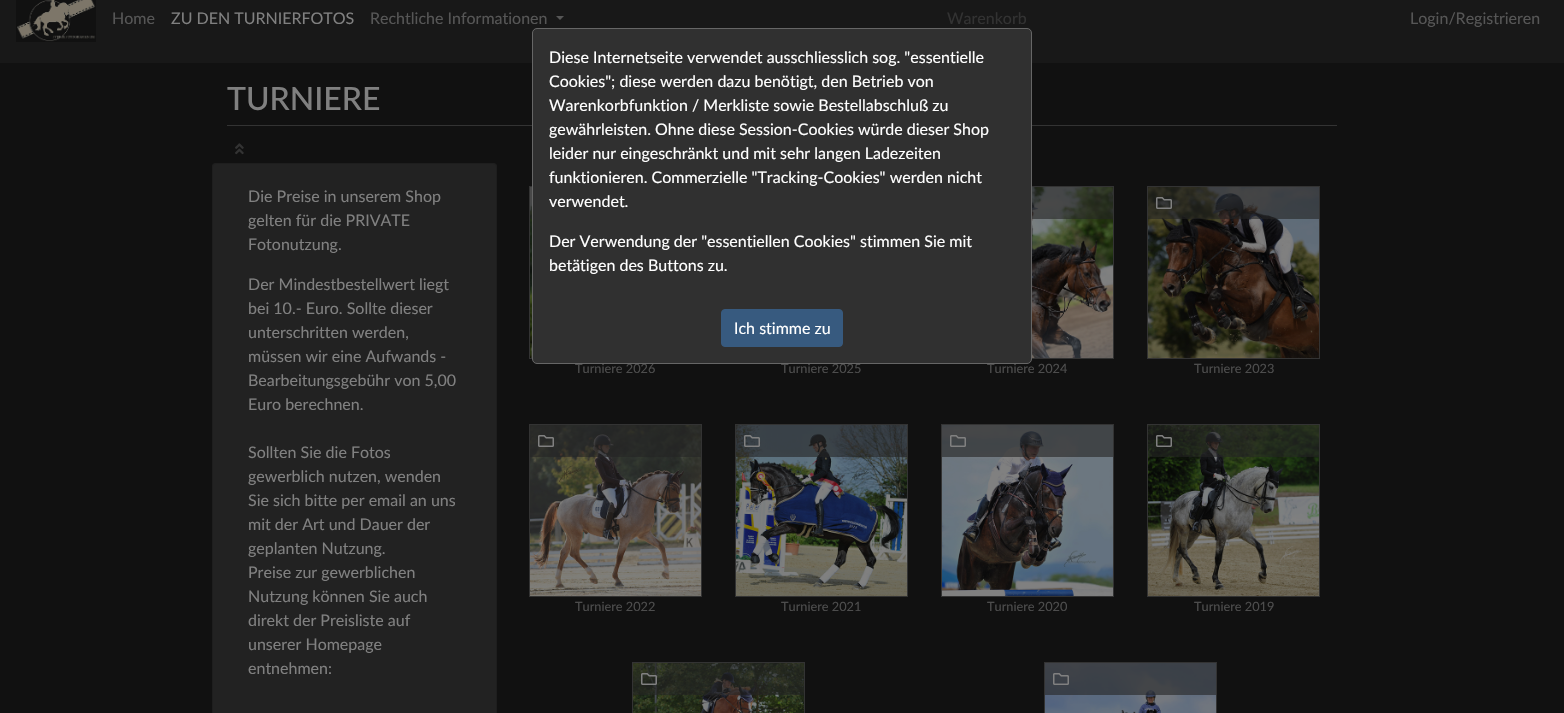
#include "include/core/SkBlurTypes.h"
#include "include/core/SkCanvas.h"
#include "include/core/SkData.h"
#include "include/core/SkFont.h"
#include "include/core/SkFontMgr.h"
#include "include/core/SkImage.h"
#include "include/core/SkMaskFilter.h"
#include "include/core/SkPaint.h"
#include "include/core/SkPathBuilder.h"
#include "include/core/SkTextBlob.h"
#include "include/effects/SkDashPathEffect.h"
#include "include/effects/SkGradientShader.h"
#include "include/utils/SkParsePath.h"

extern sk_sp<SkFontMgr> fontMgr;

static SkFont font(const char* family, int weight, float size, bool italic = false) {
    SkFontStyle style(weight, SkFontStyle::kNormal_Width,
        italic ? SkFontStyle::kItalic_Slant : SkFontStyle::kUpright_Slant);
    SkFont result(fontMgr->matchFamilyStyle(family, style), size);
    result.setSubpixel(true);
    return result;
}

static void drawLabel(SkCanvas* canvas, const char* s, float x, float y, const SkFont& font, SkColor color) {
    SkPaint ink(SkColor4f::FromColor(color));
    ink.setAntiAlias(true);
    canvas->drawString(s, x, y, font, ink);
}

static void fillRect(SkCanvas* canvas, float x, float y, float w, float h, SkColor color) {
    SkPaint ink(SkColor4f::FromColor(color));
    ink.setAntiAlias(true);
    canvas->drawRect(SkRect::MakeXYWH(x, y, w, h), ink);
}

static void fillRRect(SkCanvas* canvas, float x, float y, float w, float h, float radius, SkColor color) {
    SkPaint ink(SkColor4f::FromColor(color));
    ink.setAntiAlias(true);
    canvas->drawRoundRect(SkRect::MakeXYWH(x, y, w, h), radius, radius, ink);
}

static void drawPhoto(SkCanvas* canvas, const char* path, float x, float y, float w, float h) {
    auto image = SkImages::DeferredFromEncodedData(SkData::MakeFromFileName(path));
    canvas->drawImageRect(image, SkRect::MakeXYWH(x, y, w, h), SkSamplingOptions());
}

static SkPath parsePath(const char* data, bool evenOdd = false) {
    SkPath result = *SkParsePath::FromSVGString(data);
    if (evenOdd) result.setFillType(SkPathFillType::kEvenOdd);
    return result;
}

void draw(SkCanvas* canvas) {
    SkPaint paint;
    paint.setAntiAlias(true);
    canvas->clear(0xFF111111);
    fillRect(canvas, 0, 0, 1564, 63, 0xFF181818);
    drawPhoto(canvas, "assets/img1.png", 16, 0, 80, 42);
    SkFont font1 = font("Lato", 400, 16);
    drawLabel(canvas, "Home", 112, 24, font1, 0xFF565656);
    drawLabel(canvas, "ZU DEN TURNIERFOTOS", 171, 24, font1, 0xFF808080);
    drawLabel(canvas, "Rechtliche Informationen", 370, 24, font1, 0xFF565656);
    paint.setColor(0xFF565656);
    canvas->drawPath(parsePath("M556 16H564L560 20Z"), paint);
    drawLabel(canvas, "Warenkorb", 947, 24, font1, 0xFF323232);
    drawLabel(canvas, "Login/Registrieren", 1410, 24, font1, 0xFF565656);
    fillRect(canvas, 227, 125, 1110, 1, 0xFF333333);
    drawPhoto(canvas, "assets/img3.png", 530, 187, 2, 171);
    paint.setStroke(true);
    paint.setStrokeWidth(1);
    paint.setColor(0xFF333333);
    canvas->drawRect(SkRect::MakeXYWH(529.5f, 186.5f, 172, 172), paint);
    SkFont font2 = font("Lato", 400, 12.75f);
    drawLabel(canvas, "Turniere 2026", 575, 373, font2, 0xFF4D4D4D);
    drawLabel(canvas, "Turniere 2025", 781, 373, font2, 0xFF4D4D4D);
    drawPhoto(canvas, "assets/img4.png", 1032, 187, 81, 171);
    canvas->drawRect(SkRect::MakeXYWH(941.5f, 186.5f, 172, 172), paint);
    drawLabel(canvas, "Turniere 2024", 987, 373, font2, 0xFF4D4D4D);
    paint.setStroke(false);
    paint.setColor(0xFF303030);
    canvas->drawRoundRect(SkRect::MakeXYWH(532.5f, 28.5f, 499, 335), 4.5f, 4.5f, paint);
    paint.setStroke(true);
    paint.setColor(0xFF666666);
    canvas->drawRoundRect(SkRect::MakeXYWH(532.5f, 28.5f, 499, 335), 4.5f, 4.5f, paint);
    drawLabel(canvas, "Diese Internetseite verwendet ausschliesslich sog. \"essentielle", 549, 63, font1, 0xFFFFFFFF);
    drawLabel(canvas, "Cookies\"; diese werden dazu benötigt, den Betrieb von", 549, 87, font1, 0xFFFFFFFF);
    drawLabel(canvas, "Warenkorbfunktion / Merkliste sowie Bestellabschluß zu", 549, 111, font1, 0xFFFFFFFF);
    drawLabel(canvas, "gewährleisten. Ohne diese Session-Cookies würde dieser Shop", 549, 135, font1, 0xFFFFFFFF);
    drawLabel(canvas, "leider nur eingeschränkt und mit sehr langen Ladezeiten", 549, 159, font1, 0xFFFFFFFF);
    drawLabel(canvas, "funktionieren. Commerzielle \"Tracking-Cookies\" werden nicht", 549, 183, font1, 0xFFFFFFFF);
    drawLabel(canvas, "verwendet.", 549, 207, font1, 0xFFFFFFFF);
    drawLabel(canvas, "Der Verwendung der \"essentiellen Cookies\" stimmen Sie mit", 549, 247, font1, 0xFFFFFFFF);
    drawLabel(canvas, "betätigen des Buttons zu.", 549, 271, font1, 0xFFFFFFFF);
    paint.setStroke(false);
    paint.setColor(0xFF375A7F);
    canvas->drawRoundRect(SkRect::MakeXYWH(721.5f, 309.5f, 121, 37), 3.5f, 3.5f, paint);
    paint.setStroke(true);
    canvas->drawRoundRect(SkRect::MakeXYWH(721.5f, 309.5f, 121, 37), 3.5f, 3.5f, paint);
    drawLabel(canvas, "Ich stimme zu", 734, 334, font1, 0xFFFFFFFF);
    SkFont font3 = font("Lato", 500, 32);
    drawLabel(canvas, "TURNIERE", 227, 110, font3, 0xFF808080);
    drawPhoto(canvas, "assets/img2.png", 235, 143, 9, 12);
    fillRRect(canvas, 212, 163, 285, 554, 4, 0xFF222222);
    paint.setColor(0x1F000000);
    canvas->drawRoundRect(SkRect::MakeXYWH(212.5f, 163.5f, 284, 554), 3.5f, 3.5f, paint);
    drawLabel(canvas, "Die Preise in unserem Shop", 248, 202, font1, 0xFF808080);
    drawLabel(canvas, "gelten für die PRIVATE", 248, 226, font1, 0xFF808080);
    drawLabel(canvas, "Fotonutzung.", 248, 250, font1, 0xFF808080);
    drawLabel(canvas, "Der Mindestbestellwert liegt", 248, 290, font1, 0xFF808080);
    drawLabel(canvas, "bei 10.- Euro. Sollte dieser", 248, 314, font1, 0xFF808080);
    drawLabel(canvas, "unterschritten werden,", 248, 338, font1, 0xFF808080);
    drawLabel(canvas, "müssen wir eine Aufwands -", 248, 362, font1, 0xFF808080);
    drawLabel(canvas, "Bearbeitungsgebühr von 5,00", 248, 386, font1, 0xFF808080);
    drawLabel(canvas, "Euro berechnen.", 248, 410, font1, 0xFF808080);
    drawLabel(canvas, "Sollten Sie die Fotos", 248, 458, font1, 0xFF808080);
    drawLabel(canvas, "gewerblich nutzen, wenden", 248, 482, font1, 0xFF808080);
    drawLabel(canvas, "Sie sich bitte per email an uns", 248, 506, font1, 0xFF808080);
    drawLabel(canvas, "mit der Art und Dauer der", 248, 530, font1, 0xFF808080);
    drawLabel(canvas, "geplanten Nutzung.", 248, 554, font1, 0xFF808080);
    drawLabel(canvas, "Preise zur gewerblichen", 248, 578, font1, 0xFF808080);
    drawLabel(canvas, "Nutzung können Sie auch", 248, 602, font1, 0xFF808080);
    drawLabel(canvas, "direkt der Preisliste auf", 248, 626, font1, 0xFF808080);
    drawLabel(canvas, "unserer Homepage", 248, 650, font1, 0xFF808080);
    drawLabel(canvas, "entnehmen:", 248, 674, font1, 0xFF808080);
    fillRect(canvas, 530, 187, 2, 32, 0x99232323);
    fillRect(canvas, 1032, 187, 81, 32, 0x99232323);
    drawPhoto(canvas, "assets/img5.png", 1148, 187, 171, 171);
    paint.setColor(0xFF333333);
    canvas->drawRect(SkRect::MakeXYWH(1147.5f, 186.5f, 172, 172), paint);
    fillRect(canvas, 1148, 187, 171, 32, 0x99232323);
    drawPhoto(canvas, "assets/img6.png", 1156, 197, 16, 12);
    drawLabel(canvas, "Turniere 2023", 1194, 373, font2, 0xFF4D4D4D);
    drawPhoto(canvas, "assets/img7.png", 530, 425, 171, 171);
    canvas->drawRect(SkRect::MakeXYWH(529.5f, 424.5f, 172, 172), paint);
    fillRect(canvas, 530, 425, 171, 32, 0x99232323);
    drawPhoto(canvas, "assets/img8.png", 538, 435, 16, 12);
    drawLabel(canvas, "Turniere 2022", 575, 611, font2, 0xFF4D4D4D);
    drawPhoto(canvas, "assets/img9.png", 736, 425, 171, 171);
    canvas->drawRect(SkRect::MakeXYWH(735.5f, 424.5f, 172, 172), paint);
    fillRect(canvas, 736, 425, 171, 32, 0x99232323);
    drawPhoto(canvas, "assets/img10.png", 744, 435, 16, 12);
    drawLabel(canvas, "Turniere 2021", 781, 611, font2, 0xFF4D4D4D);
    drawPhoto(canvas, "assets/img11.png", 942, 425, 171, 171);
    canvas->drawRect(SkRect::MakeXYWH(941.5f, 424.5f, 172, 172), paint);
    fillRect(canvas, 942, 425, 171, 32, 0x99232323);
    drawPhoto(canvas, "assets/img12.png", 950, 435, 16, 12);
    drawLabel(canvas, "Turniere 2020", 987, 611, font2, 0xFF4D4D4D);
    drawPhoto(canvas, "assets/img13.png", 1148, 425, 171, 171);
    canvas->drawRect(SkRect::MakeXYWH(1147.5f, 424.5f, 172, 172), paint);
    fillRect(canvas, 1148, 425, 171, 32, 0x99232323);
    drawPhoto(canvas, "assets/img14.png", 1156, 435, 16, 12);
    drawLabel(canvas, "Turniere 2019", 1194, 611, font2, 0xFF4D4D4D);
    drawPhoto(canvas, "assets/img15.png", 633, 663, 171, 50);
    canvas->drawRect(SkRect::MakeXYWH(632.5f, 662.5f, 172, 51), paint);
    fillRect(canvas, 633, 663, 171, 32, 0x99232323);
    drawPhoto(canvas, "assets/img16.png", 641, 673, 16, 12);
    drawPhoto(canvas, "assets/img17.png", 1045, 663, 171, 50);
    canvas->drawRect(SkRect::MakeXYWH(1044.5f, 662.5f, 172, 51), paint);
    fillRect(canvas, 1045, 663, 171, 32, 0x99232323);
    drawPhoto(canvas, "assets/img18.png", 1053, 673, 16, 12);
}
